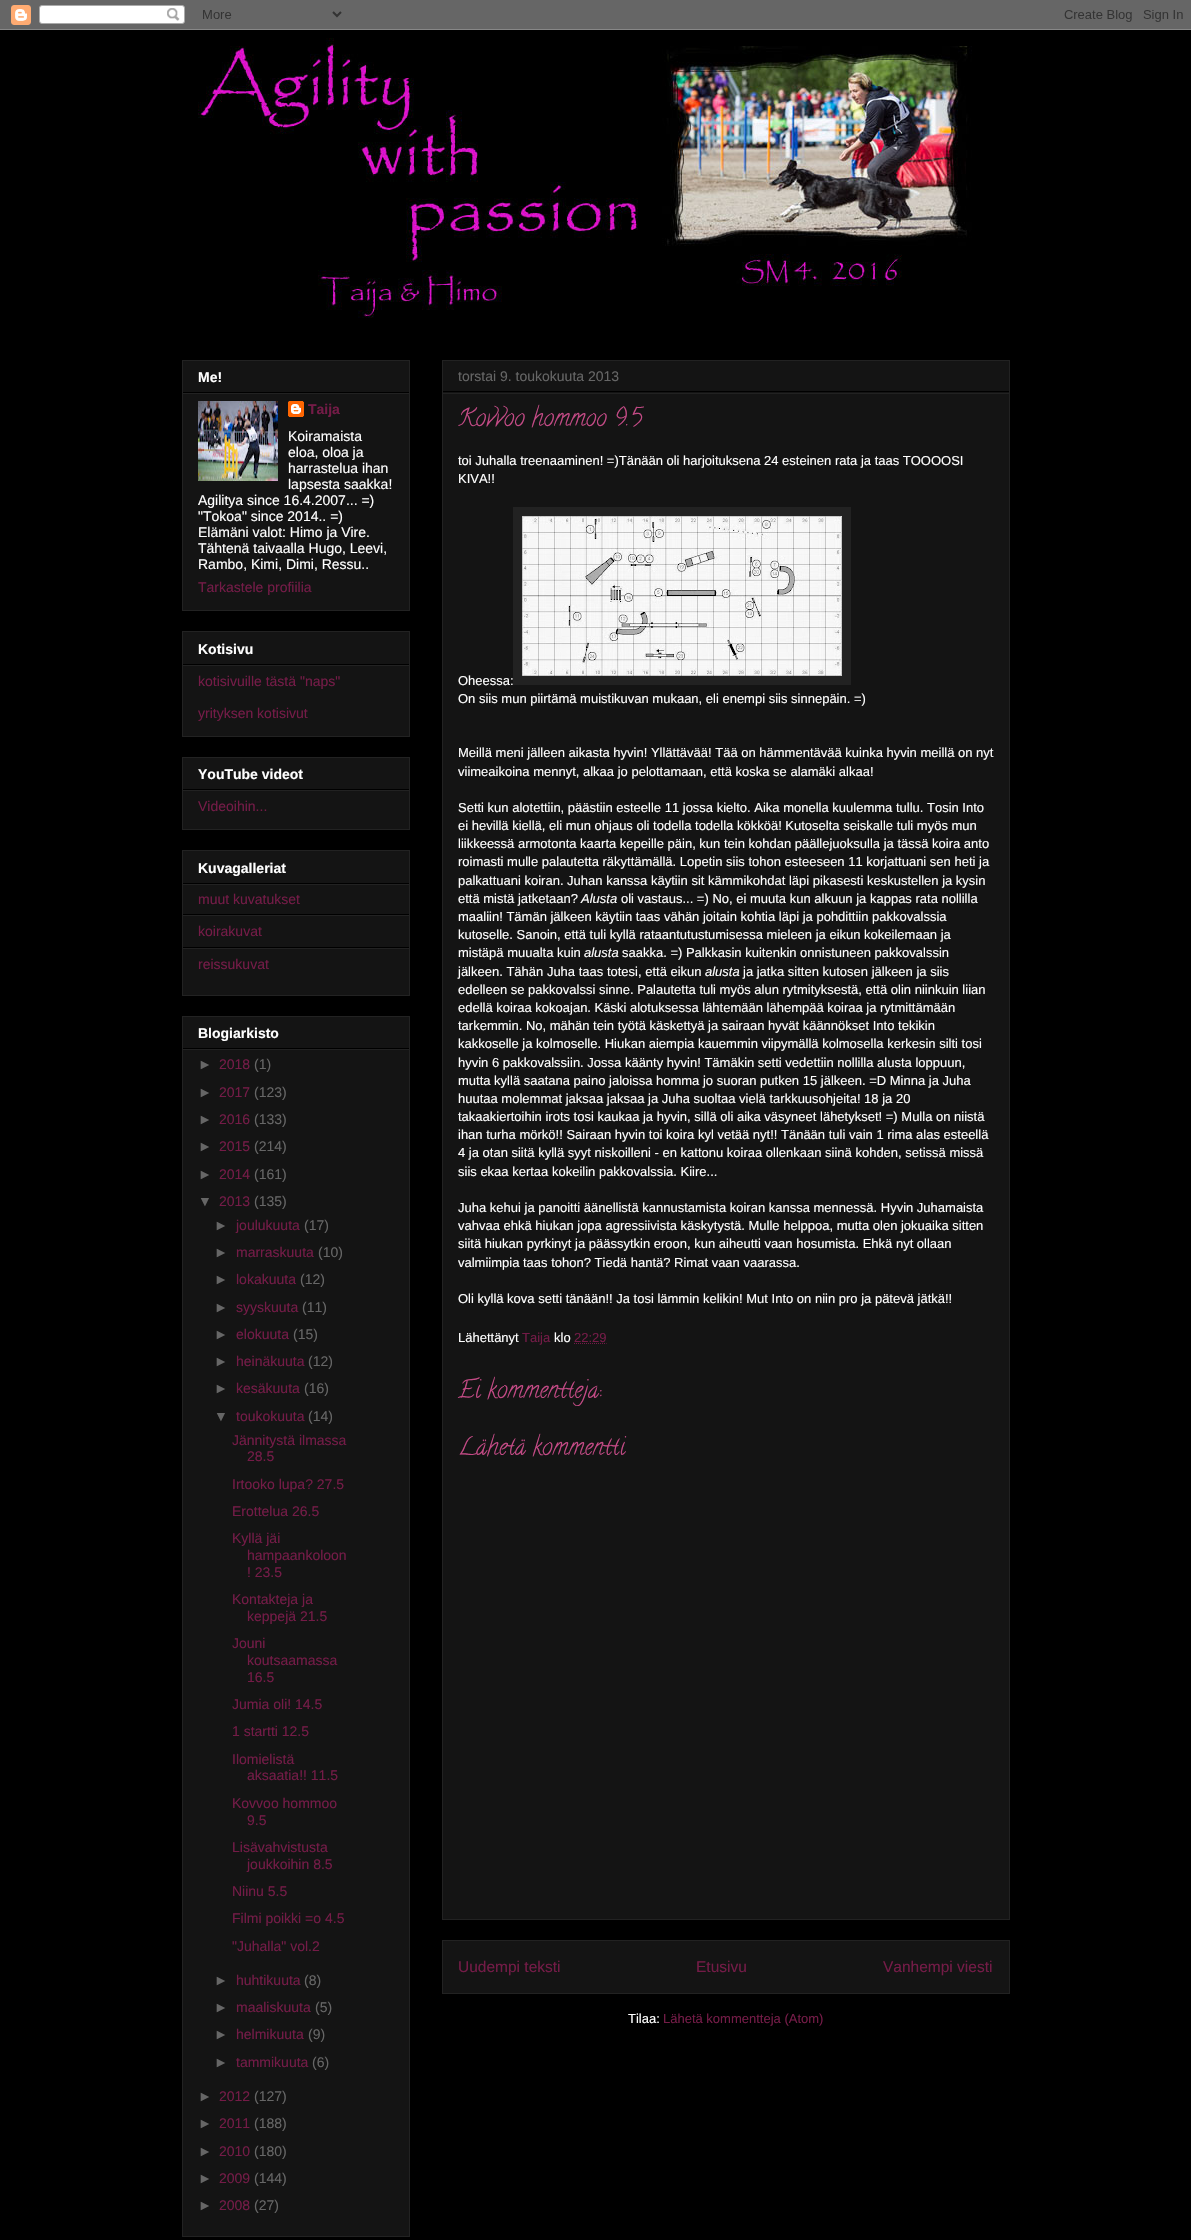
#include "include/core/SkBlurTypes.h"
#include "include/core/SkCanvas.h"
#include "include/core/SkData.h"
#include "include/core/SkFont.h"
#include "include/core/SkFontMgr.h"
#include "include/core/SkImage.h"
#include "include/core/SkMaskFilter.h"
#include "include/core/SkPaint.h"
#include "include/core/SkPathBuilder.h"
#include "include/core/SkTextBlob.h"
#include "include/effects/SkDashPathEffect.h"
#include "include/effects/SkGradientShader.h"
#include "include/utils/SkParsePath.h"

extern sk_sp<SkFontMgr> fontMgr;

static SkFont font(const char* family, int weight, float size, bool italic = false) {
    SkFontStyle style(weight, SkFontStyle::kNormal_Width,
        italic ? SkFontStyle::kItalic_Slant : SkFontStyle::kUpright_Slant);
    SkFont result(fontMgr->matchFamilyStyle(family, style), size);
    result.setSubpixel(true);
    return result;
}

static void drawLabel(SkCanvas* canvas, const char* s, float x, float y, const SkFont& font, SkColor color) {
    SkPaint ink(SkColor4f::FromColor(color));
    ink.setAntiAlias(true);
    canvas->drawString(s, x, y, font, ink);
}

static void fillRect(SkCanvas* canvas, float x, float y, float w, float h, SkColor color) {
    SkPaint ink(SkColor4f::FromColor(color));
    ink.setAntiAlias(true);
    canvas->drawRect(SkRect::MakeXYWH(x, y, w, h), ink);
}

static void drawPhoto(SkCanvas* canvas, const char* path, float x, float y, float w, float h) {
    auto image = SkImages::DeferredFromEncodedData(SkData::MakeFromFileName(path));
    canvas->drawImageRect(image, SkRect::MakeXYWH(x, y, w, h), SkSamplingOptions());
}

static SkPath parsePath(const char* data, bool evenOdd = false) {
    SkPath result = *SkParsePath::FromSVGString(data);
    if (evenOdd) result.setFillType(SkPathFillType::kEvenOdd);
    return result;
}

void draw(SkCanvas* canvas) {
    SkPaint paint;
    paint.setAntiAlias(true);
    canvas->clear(0xFF000000);
    drawPhoto(canvas, "assets/img1.png", 0, 0, 1191, 30);
    drawPhoto(canvas, "assets/img2.png", 198, 38, 774, 280);
    paint.setColor(0xFF141414);
    canvas->drawRect(SkRect::MakeXYWH(182.5f, 360.5f, 227, 250), paint);
    paint.setStroke(true);
    paint.setStrokeWidth(1);
    paint.setColor(0xFF222222);
    canvas->drawRect(SkRect::MakeXYWH(182.5f, 360.5f, 227, 250), paint);
    fillRect(canvas, 183, 392, 226, 1, 0xFF000000);
    SkFont font1 = font("Liberation Sans", 700, 14);
    drawLabel(canvas, "Me!", 198, 382, font1, 0xFFFFFFFF);
    fillRect(canvas, 183, 393, 226, 1, 0xFF222222);
    drawPhoto(canvas, "assets/img3.png", 198, 401, 80, 80);
    drawPhoto(canvas, "assets/img4.png", 288, 401, 16, 16);
    drawLabel(canvas, "Taija", 308, 414, font1, 0xFF741B47);
    SkFont font2 = font("Liberation Sans", 400, 14);
    drawLabel(canvas, "Koiramaista", 288, 441, font2, 0xFFFFFFFF);
    drawLabel(canvas, "eloa, oloa ja", 288, 457, font2, 0xFFFFFFFF);
    drawLabel(canvas, "harrastelua ihan", 288, 473, font2, 0xFFFFFFFF);
    drawLabel(canvas, "lapsesta saakka!", 288, 489, font2, 0xFFFFFFFF);
    drawLabel(canvas, "Agilitya since 16.4.2007... =)", 198, 505, font2, 0xFFFFFFFF);
    drawLabel(canvas, "\"Tokoa\" since 2014.. =)", 198, 521, font2, 0xFFFFFFFF);
    drawLabel(canvas, "Elämäni valot: Himo ja Vire.", 198, 537, font2, 0xFFFFFFFF);
    drawLabel(canvas, "Tähtenä taivaalla Hugo, Leevi,", 198, 553, font2, 0xFFFFFFFF);
    drawLabel(canvas, "Rambo, Kimi, Dimi, Ressu..", 198, 569, font2, 0xFFFFFFFF);
    drawLabel(canvas, "Tarkastele profiilia", 198, 592, font2, 0xFF741B47);
    paint.setStroke(false);
    paint.setColor(0xFF141414);
    canvas->drawRect(SkRect::MakeXYWH(182.5f, 631.5f, 227, 105), paint);
    paint.setStroke(true);
    paint.setColor(0xFF222222);
    canvas->drawRect(SkRect::MakeXYWH(182.5f, 631.5f, 227, 105), paint);
    fillRect(canvas, 183, 664, 226, 1, 0xFF000000);
    drawLabel(canvas, "Kotisivu", 198, 654, font1, 0xFFFFFFFF);
    fillRect(canvas, 183, 665, 226, 1, 0xFF222222);
    drawLabel(canvas, "kotisivuille tästä \"naps\"", 198, 686, font2, 0xFF741B47);
    drawLabel(canvas, "yrityksen kotisivut", 198, 718, font2, 0xFF741B47);
    paint.setStroke(false);
    paint.setColor(0xFF141414);
    canvas->drawRect(SkRect::MakeXYWH(182.5f, 757.5f, 227, 72), paint);
    paint.setStroke(true);
    paint.setColor(0xFF222222);
    canvas->drawRect(SkRect::MakeXYWH(182.5f, 757.5f, 227, 72), paint);
    fillRect(canvas, 183, 789, 226, 1, 0xFF000000);
    drawLabel(canvas, "YouTube videot", 198, 779, font1, 0xFFFFFFFF);
    fillRect(canvas, 183, 790, 226, 1, 0xFF222222);
    drawLabel(canvas, "Videoihin...", 198, 811, font2, 0xFF741B47);
    paint.setStroke(false);
    paint.setColor(0xFF141414);
    canvas->drawRect(SkRect::MakeXYWH(182.5f, 850.5f, 227, 145), paint);
    paint.setStroke(true);
    paint.setColor(0xFF222222);
    canvas->drawRect(SkRect::MakeXYWH(182.5f, 850.5f, 227, 145), paint);
    fillRect(canvas, 183, 883, 226, 1, 0xFF000000);
    drawLabel(canvas, "Kuvagalleriat", 198, 873, font1, 0xFFFFFFFF);
    fillRect(canvas, 183, 884, 226, 1, 0xFF222222);
    fillRect(canvas, 183, 914, 226, 1, 0xFF000000);
    drawLabel(canvas, "muut kuvatukset", 198, 904, font2, 0xFF741B47);
    fillRect(canvas, 183, 915, 226, 1, 0xFF222222);
    fillRect(canvas, 183, 947, 226, 1, 0xFF000000);
    drawLabel(canvas, "koirakuvat", 198, 936, font2, 0xFF741B47);
    fillRect(canvas, 183, 948, 226, 1, 0xFF222222);
    drawLabel(canvas, "reissukuvat", 198, 969, font2, 0xFF741B47);
    paint.setStroke(false);
    paint.setColor(0xFF141414);
    canvas->drawRect(SkRect::MakeXYWH(182.5f, 1016.5f, 227, 1220), paint);
    paint.setStroke(true);
    paint.setColor(0xFF222222);
    canvas->drawRect(SkRect::MakeXYWH(182.5f, 1016.5f, 227, 1220), paint);
    fillRect(canvas, 183, 1048, 226, 1, 0xFF000000);
    drawLabel(canvas, "Blogiarkisto", 198, 1038, font1, 0xFFFFFFFF);
    fillRect(canvas, 183, 1049, 226, 1, 0xFF222222);
    drawLabel(canvas, "►", 198, 1069, font2, 0xFF666666);
    drawLabel(canvas, "2018", 219, 1069, font2, 0xFF741B47);
    drawLabel(canvas, "(1)", 254, 1069, font2, 0xFF666666);
    drawLabel(canvas, "►", 198, 1097, font2, 0xFF666666);
    drawLabel(canvas, "2017", 219, 1097, font2, 0xFF741B47);
    drawLabel(canvas, "(123)", 254, 1097, font2, 0xFF666666);
    drawLabel(canvas, "►", 198, 1124, font2, 0xFF666666);
    drawLabel(canvas, "2016", 219, 1124, font2, 0xFF741B47);
    drawLabel(canvas, "(133)", 254, 1124, font2, 0xFF666666);
    drawLabel(canvas, "►", 198, 1151, font2, 0xFF666666);
    drawLabel(canvas, "2015", 219, 1151, font2, 0xFF741B47);
    drawLabel(canvas, "(214)", 254, 1151, font2, 0xFF666666);
    drawLabel(canvas, "►", 198, 1179, font2, 0xFF666666);
    drawLabel(canvas, "2014", 219, 1179, font2, 0xFF741B47);
    drawLabel(canvas, "(161)", 254, 1179, font2, 0xFF666666);
    drawLabel(canvas, "▼", 198, 1206, font2, 0xFF666666);
    drawLabel(canvas, "2013", 219, 1206, font2, 0xFF741B47);
    drawLabel(canvas, "(135)", 254, 1206, font2, 0xFF666666);
    drawLabel(canvas, "►", 214, 1230, font2, 0xFF666666);
    drawLabel(canvas, "joulukuuta", 236, 1230, font2, 0xFF741B47);
    drawLabel(canvas, "(17)", 304, 1230, font2, 0xFF666666);
    drawLabel(canvas, "►", 214, 1257, font2, 0xFF666666);
    drawLabel(canvas, "marraskuuta", 236, 1257, font2, 0xFF741B47);
    drawLabel(canvas, "(10)", 318, 1257, font2, 0xFF666666);
    drawLabel(canvas, "►", 214, 1284, font2, 0xFF666666);
    drawLabel(canvas, "lokakuuta", 236, 1284, font2, 0xFF741B47);
    drawLabel(canvas, "(12)", 300, 1284, font2, 0xFF666666);
    drawLabel(canvas, "►", 214, 1312, font2, 0xFF666666);
    drawLabel(canvas, "syyskuuta", 236, 1312, font2, 0xFF741B47);
    drawLabel(canvas, "(11)", 302, 1312, font2, 0xFF666666);
    drawLabel(canvas, "►", 214, 1339, font2, 0xFF666666);
    drawLabel(canvas, "elokuuta", 236, 1339, font2, 0xFF741B47);
    drawLabel(canvas, "(15)", 293, 1339, font2, 0xFF666666);
    drawLabel(canvas, "►", 214, 1366, font2, 0xFF666666);
    drawLabel(canvas, "heinäkuuta", 236, 1366, font2, 0xFF741B47);
    drawLabel(canvas, "(12)", 308, 1366, font2, 0xFF666666);
    drawLabel(canvas, "►", 214, 1393, font2, 0xFF666666);
    drawLabel(canvas, "kesäkuuta", 236, 1393, font2, 0xFF741B47);
    drawLabel(canvas, "(16)", 304, 1393, font2, 0xFF666666);
    drawLabel(canvas, "▼", 214, 1421, font2, 0xFF666666);
    drawLabel(canvas, "toukokuuta", 236, 1421, font2, 0xFF741B47);
    drawLabel(canvas, "(14)", 308, 1421, font2, 0xFF666666);
    drawLabel(canvas, "Jännitystä ilmassa", 232, 1445, font2, 0xFF741B47);
    drawLabel(canvas, "28.5", 247, 1461, font2, 0xFF741B47);
    drawLabel(canvas, "Irtooko lupa? 27.5", 232, 1489, font2, 0xFF741B47);
    drawLabel(canvas, "Erottelua 26.5", 232, 1516, font2, 0xFF741B47);
    drawLabel(canvas, "Kyllä jäi", 232, 1543, font2, 0xFF741B47);
    drawLabel(canvas, "hampaankoloon", 247, 1560, font2, 0xFF741B47);
    drawLabel(canvas, "! 23.5", 247, 1577, font2, 0xFF741B47);
    drawLabel(canvas, "Kontakteja ja", 232, 1604, font2, 0xFF741B47);
    drawLabel(canvas, "keppejä 21.5", 247, 1621, font2, 0xFF741B47);
    drawLabel(canvas, "Jouni", 232, 1648, font2, 0xFF741B47);
    drawLabel(canvas, "koutsaamassa", 247, 1665, font2, 0xFF741B47);
    drawLabel(canvas, "16.5", 247, 1682, font2, 0xFF741B47);
    drawLabel(canvas, "Jumia oli! 14.5", 232, 1709, font2, 0xFF741B47);
    drawLabel(canvas, "1 startti 12.5", 232, 1736, font2, 0xFF741B47);
    drawLabel(canvas, "Ilomielistä", 232, 1764, font2, 0xFF741B47);
    drawLabel(canvas, "aksaatia!! 11.5", 247, 1780, font2, 0xFF741B47);
    drawLabel(canvas, "Kovvoo hommoo", 232, 1808, font2, 0xFF741B47);
    drawLabel(canvas, "9.5", 247, 1825, font2, 0xFF741B47);
    drawLabel(canvas, "Lisävahvistusta", 232, 1852, font2, 0xFF741B47);
    drawLabel(canvas, "joukkoihin 8.5", 247, 1869, font2, 0xFF741B47);
    drawLabel(canvas, "Niinu 5.5", 232, 1896, font2, 0xFF741B47);
    drawLabel(canvas, "Filmi poikki =o 4.5", 232, 1923, font2, 0xFF741B47);
    drawLabel(canvas, "\"Juhalla\" vol.2", 232, 1951, font2, 0xFF741B47);
    drawLabel(canvas, "►", 214, 1985, font2, 0xFF666666);
    drawLabel(canvas, "huhtikuuta", 236, 1985, font2, 0xFF741B47);
    drawLabel(canvas, "(8)", 304, 1985, font2, 0xFF666666);
    drawLabel(canvas, "►", 214, 2012, font2, 0xFF666666);
    drawLabel(canvas, "maaliskuuta", 236, 2012, font2, 0xFF741B47);
    drawLabel(canvas, "(5)", 315, 2012, font2, 0xFF666666);
    drawLabel(canvas, "►", 214, 2039, font2, 0xFF666666);
    drawLabel(canvas, "helmikuuta", 236, 2039, font2, 0xFF741B47);
    drawLabel(canvas, "(9)", 308, 2039, font2, 0xFF666666);
    drawLabel(canvas, "►", 214, 2067, font2, 0xFF666666);
    drawLabel(canvas, "tammikuuta", 236, 2067, font2, 0xFF741B47);
    drawLabel(canvas, "(6)", 312, 2067, font2, 0xFF666666);
    drawLabel(canvas, "►", 198, 2101, font2, 0xFF666666);
    drawLabel(canvas, "2012", 219, 2101, font2, 0xFF741B47);
    drawLabel(canvas, "(127)", 254, 2101, font2, 0xFF666666);
    drawLabel(canvas, "►", 198, 2128, font2, 0xFF666666);
    drawLabel(canvas, "2011", 219, 2128, font2, 0xFF741B47);
    drawLabel(canvas, "(188)", 254, 2128, font2, 0xFF666666);
    drawLabel(canvas, "►", 198, 2156, font2, 0xFF666666);
    drawLabel(canvas, "2010", 219, 2156, font2, 0xFF741B47);
    drawLabel(canvas, "(180)", 254, 2156, font2, 0xFF666666);
    drawLabel(canvas, "►", 198, 2183, font2, 0xFF666666);
    drawLabel(canvas, "2009", 219, 2183, font2, 0xFF741B47);
    drawLabel(canvas, "(144)", 254, 2183, font2, 0xFF666666);
    drawLabel(canvas, "►", 198, 2210, font2, 0xFF666666);
    drawLabel(canvas, "2008", 219, 2210, font2, 0xFF741B47);
    drawLabel(canvas, "(27)", 254, 2210, font2, 0xFF666666);
    paint.setStroke(false);
    paint.setColor(0xFF141414);
    canvas->drawRect(SkRect::MakeXYWH(442.5f, 360.5f, 567, 1559), paint);
    paint.setStroke(true);
    paint.setColor(0xFF222222);
    canvas->drawRect(SkRect::MakeXYWH(442.5f, 360.5f, 567, 1559), paint);
    fillRect(canvas, 443, 391, 566, 1, 0xFF000000);
    drawLabel(canvas, "torstai 9. toukokuuta 2013", 458, 381, font2, 0xFF666666);
    fillRect(canvas, 443, 393, 566, 1, 0xFF222222);
    SkFont font3 = font("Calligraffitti", 400, 24);
    drawLabel(canvas, "Kovvoo hommoo 9.5", 458, 425, font3, 0xFFC34A85);
    SkFont font4 = font("Liberation Sans", 400, 13);
    drawLabel(canvas, "toi Juhalla treenaaminen! =)Tänään oli harjoituksena 24 esteinen rata ja taas TOOOOSI", 458, 465, font4, 0xFFFFFFFF);
    drawLabel(canvas, "KIVA!!", 458, 483, font4, 0xFFFFFFFF);
    fillRect(canvas, 513, 507, 338, 178, 0xFF222222);
    drawPhoto(canvas, "assets/img5.png", 522, 516, 320, 160);
    drawLabel(canvas, "Oheessa:", 458, 685, font4, 0xFFFFFFFF);
    drawLabel(canvas, "On siis mun piirtämä muistikuvan mukaan, eli enempi siis sinnepäin. =)", 458, 703, font4, 0xFFFFFFFF);
    drawLabel(canvas, "Meillä meni jälleen aikasta hyvin! Yllättävää! Tää on hämmentävää kuinka hyvin meillä on nyt", 458, 757, font4, 0xFFFFFFFF);
    drawLabel(canvas, "viimeaikoina mennyt, alkaa jo pelottamaan, että koska se alamäki alkaa!", 458, 776, font4, 0xFFFFFFFF);
    drawLabel(canvas, "Setti kun alotettiin, päästiin esteelle 11 jossa kielto. Aika monella kuulemma tullu. Tosin Into", 458, 812, font4, 0xFFFFFFFF);
    drawLabel(canvas, "ei hevillä kiellä, eli mun ohjaus oli todella todella kökköä! Kutoselta seiskalle tuli myös mun", 458, 830, font4, 0xFFFFFFFF);
    drawLabel(canvas, "liikkeessä armotonta kaarta kepeille päin, kun tein kohdan päällejuoksulla ja tässä koira anto", 458, 848, font4, 0xFFFFFFFF);
    drawLabel(canvas, "roimasti mulle palautetta räkyttämällä. Lopetin siis tohon esteeseen 11 korjattuani sen heti ja", 458, 866, font4, 0xFFFFFFFF);
    drawLabel(canvas, "palkattuani koiran. Juhan kanssa käytiin sit kämmikohdat läpi pikasesti keskustellen ja kysin", 458, 885, font4, 0xFFFFFFFF);
    drawLabel(canvas, "että mistä jatketaan?", 458, 903, font4, 0xFFFFFFFF);
    SkFont font5 = font("Liberation Sans", 400, 13, true);
    drawLabel(canvas, "Alusta", 581, 903, font5, 0xFFFFFFFF);
    drawLabel(canvas, "oli vastaus... =) No, ei muuta kun alkuun ja kappas rata nollilla", 621, 903, font4, 0xFFFFFFFF);
    drawLabel(canvas, "maaliin! Tämän jälkeen käytiin taas vähän joitain kohtia läpi ja pohdittiin pakkovalssia", 458, 921, font4, 0xFFFFFFFF);
    drawLabel(canvas, "kutoselle. Sanoin, että tuli kyllä rataantutustumisessa mieleen ja eikun kokeilemaan ja", 458, 939, font4, 0xFFFFFFFF);
    drawLabel(canvas, "mistäpä muualta kuin", 458, 957, font4, 0xFFFFFFFF);
    drawLabel(canvas, "alusta", 584, 957, font5, 0xFFFFFFFF);
    drawLabel(canvas, "saakka. =) Palkkasin kuitenkin onnistuneen pakkovalssin", 622, 957, font4, 0xFFFFFFFF);
    drawLabel(canvas, "jälkeen. Tähän Juha taas totesi, että eikun", 458, 976, font4, 0xFFFFFFFF);
    drawLabel(canvas, "alusta", 705, 976, font5, 0xFFFFFFFF);
    drawLabel(canvas, "ja jatka sitten kutosen jälkeen ja siis", 743, 976, font4, 0xFFFFFFFF);
    drawLabel(canvas, "edelleen se pakkovalssi sinne. Palautetta tuli myös alun rytmityksestä, että olin niinkuin liian", 458, 994, font4, 0xFFFFFFFF);
    drawLabel(canvas, "edellä koiraa kokoajan. Käski alotuksessa lähtemään lähempää koiraa ja rytmittämään", 458, 1012, font4, 0xFFFFFFFF);
    drawLabel(canvas, "tarkemmin. No, mähän tein työtä käskettyä ja sairaan hyvät käännökset Into tekikin", 458, 1030, font4, 0xFFFFFFFF);
    drawLabel(canvas, "kakkoselle ja kolmoselle. Hiukan aiempia kauemmin viipymällä kolmosella kerkesin silti tosi", 458, 1048, font4, 0xFFFFFFFF);
    drawLabel(canvas, "hyvin 6 pakkovalssiin. Jossa käänty hyvin! Tämäkin setti vedettiin nollilla alusta loppuun,", 458, 1067, font4, 0xFFFFFFFF);
    drawLabel(canvas, "mutta kyllä saatana paino jaloissa homma jo suoran putken 15 jälkeen. =D Minna ja Juha", 458, 1085, font4, 0xFFFFFFFF);
    drawLabel(canvas, "huutaa molemmat jaksaa jaksaa ja Juha suoltaa vielä tarkkuusohjeita! 18 ja 20", 458, 1103, font4, 0xFFFFFFFF);
    drawLabel(canvas, "takaakiertoihin irots tosi kaukaa ja hyvin, sillä oli aika väsyneet lähetykset! =) Mulla on niistä", 458, 1121, font4, 0xFFFFFFFF);
    drawLabel(canvas, "ihan turha mörkö!! Sairaan hyvin toi koira kyl vetää nyt!! Tänään tuli vain 1 rima alas esteellä", 458, 1139, font4, 0xFFFFFFFF);
    drawLabel(canvas, "4 ja otan siitä kyllä syyt niskoilleni - en kattonu koiraa ollenkaan siinä kohden, setissä missä", 458, 1157, font4, 0xFFFFFFFF);
    drawLabel(canvas, "siis ekaa kertaa kokeilin pakkovalssia. Kiire...", 458, 1176, font4, 0xFFFFFFFF);
    drawLabel(canvas, "Juha kehui ja panoitti äänellistä kannustamista koiran kanssa mennessä. Hyvin Juhamaista", 458, 1212, font4, 0xFFFFFFFF);
    drawLabel(canvas, "vahvaa ehkä hiukan jopa agressiivista käskytystä. Mulle helppoa, mutta olen jokuaika sitten", 458, 1230, font4, 0xFFFFFFFF);
    drawLabel(canvas, "siitä hiukan pyrkinyt ja päässytkin eroon, kun aiheutti vaan hosumista. Ehkä nyt ollaan", 458, 1248, font4, 0xFFFFFFFF);
    drawLabel(canvas, "valmiimpia taas tohon? Tiedä hantä? Rimat vaan vaarassa.", 458, 1267, font4, 0xFFFFFFFF);
    drawLabel(canvas, "Oli kyllä kova setti tänään!! Ja tosi lämmin kelikin! Mut Into on niin pro ja pätevä jätkä!!", 458, 1303, font4, 0xFFFFFFFF);
    drawLabel(canvas, "Lähettänyt", 458, 1342, font4, 0xFFFFFFFF);
    drawLabel(canvas, "Taija", 522, 1342, font4, 0xFF741B47);
    drawLabel(canvas, "klo", 554, 1342, font4, 0xFFFFFFFF);
    drawLabel(canvas, "22:29", 574, 1342, font4, 0xFF741B47);
    paint.setColor(0xFF741B47);
    paint.setPathEffect(SkDashPathEffect::Make({{1, 1}}, 0));
    canvas->drawPath(parsePath("M574 1343.5H606.5"), paint);
    paint.setPathEffect(nullptr);
    drawLabel(canvas, "Ei kommentteja:", 458, 1397, font3, 0xFFC34A85);
    drawLabel(canvas, "Lähetä kommentti", 458, 1454, font3, 0xFFC34A85);
    paint.setStroke(false);
    paint.setColor(0xFF141414);
    canvas->drawRect(SkRect::MakeXYWH(442.5f, 1940.5f, 567, 53), paint);
    paint.setStroke(true);
    paint.setColor(0xFF222222);
    canvas->drawRect(SkRect::MakeXYWH(442.5f, 1940.5f, 567, 53), paint);
    SkFont font6 = font("Liberation Sans", 400, 15.5f);
    drawLabel(canvas, "Uudempi teksti", 458, 1972, font6, 0xFF741B47);
    drawLabel(canvas, "Etusivu", 696, 1972, font6, 0xFF741B47);
    drawLabel(canvas, "Vanhempi viesti", 883, 1972, font6, 0xFF741B47);
    drawLabel(canvas, "Tilaa:", 628, 2023, font4, 0xFFFFFFFF);
    drawLabel(canvas, "Lähetä kommentteja (Atom)", 663, 2023, font4, 0xFF741B47);
}
